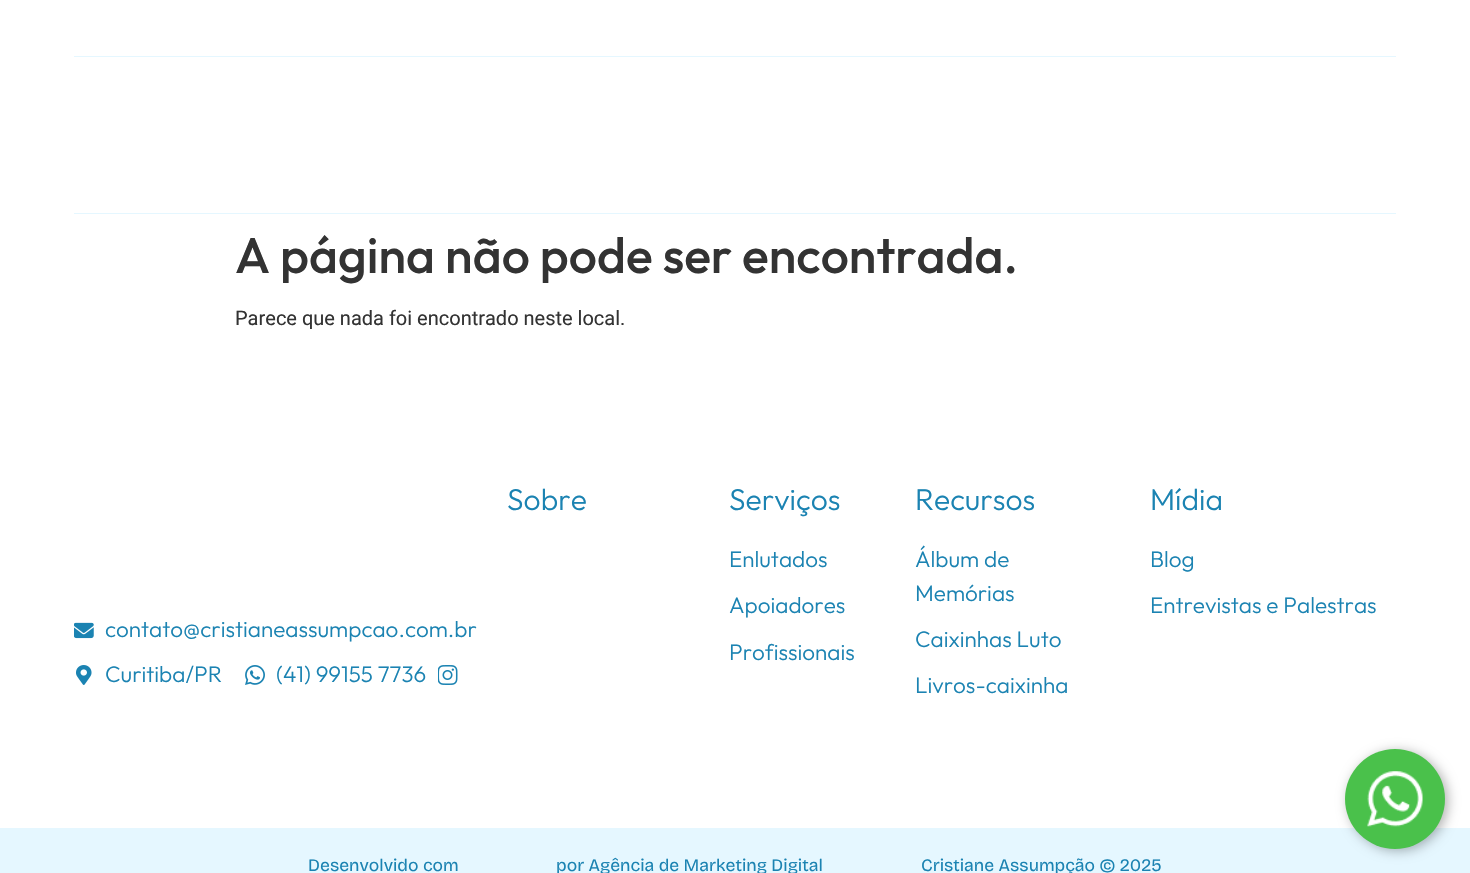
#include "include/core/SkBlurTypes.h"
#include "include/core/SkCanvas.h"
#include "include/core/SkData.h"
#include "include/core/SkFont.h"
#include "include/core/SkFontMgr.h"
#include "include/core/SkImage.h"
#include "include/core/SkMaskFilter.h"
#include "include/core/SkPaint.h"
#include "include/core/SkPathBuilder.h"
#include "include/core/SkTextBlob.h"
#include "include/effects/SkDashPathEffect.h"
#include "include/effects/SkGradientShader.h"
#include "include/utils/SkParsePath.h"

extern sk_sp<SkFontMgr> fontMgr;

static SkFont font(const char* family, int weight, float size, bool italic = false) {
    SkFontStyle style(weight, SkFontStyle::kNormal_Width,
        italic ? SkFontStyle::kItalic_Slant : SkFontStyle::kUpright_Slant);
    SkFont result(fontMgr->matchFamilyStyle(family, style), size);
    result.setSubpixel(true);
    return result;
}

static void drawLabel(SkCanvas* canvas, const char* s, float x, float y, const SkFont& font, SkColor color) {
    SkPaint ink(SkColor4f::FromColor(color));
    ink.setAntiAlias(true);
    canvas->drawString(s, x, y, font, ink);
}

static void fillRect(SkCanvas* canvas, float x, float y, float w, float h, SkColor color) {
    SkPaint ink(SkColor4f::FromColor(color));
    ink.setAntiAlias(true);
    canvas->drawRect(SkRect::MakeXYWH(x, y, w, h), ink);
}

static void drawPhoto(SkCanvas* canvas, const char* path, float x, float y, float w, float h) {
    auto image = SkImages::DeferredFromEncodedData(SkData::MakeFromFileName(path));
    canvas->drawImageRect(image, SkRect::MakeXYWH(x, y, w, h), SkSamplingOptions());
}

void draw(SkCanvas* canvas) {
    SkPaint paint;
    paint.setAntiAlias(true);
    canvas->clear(0xFFFFFFFF);
    fillRect(canvas, 74, 56, 1322, 1, 0xFFE5F7FF);
    fillRect(canvas, 74, 213, 1322, 1, 0xFFE5F7FF);
    SkFont font1 = font("Outfit", 500, 50);
    drawLabel(canvas, "A página não pode ser encontrada.", 235, 273, font1, 0xFF333333);
    SkFont font2 = font("Roboto", 400, 20);
    drawLabel(canvas, "Parece que nada foi encontrado neste local.", 235, 325, font2, 0xFF333333);
    drawPhoto(canvas, "assets/img1.png", 74, 622, 20, 17);
    SkFont font3 = font("Outfit", 300, 22.5f);
    drawLabel(canvas, "contato@cristianeassumpcao.com.br", 105, 637, font3, 0xFF1B83B2);
    drawPhoto(canvas, "assets/img2.png", 76, 665, 16, 20);
    drawLabel(canvas, "Curitiba/PR", 105, 682, font3, 0xFF1B83B2);
    drawPhoto(canvas, "assets/img3.png", 245, 665, 20, 20);
    drawLabel(canvas, "(41) 99155 7736", 276, 682, font3, 0xFF1B83B2);
    drawPhoto(canvas, "assets/img4.png", 438, 665, 20, 20);
    SkFont font4 = font("Outfit", 300, 30);
    drawLabel(canvas, "Sobre", 507, 510, font4, 0xFF1B83B2);
    drawLabel(canvas, "Serviços", 729, 510, font4, 0xFF1B83B2);
    drawLabel(canvas, "Enlutados", 729, 567, font3, 0xFF1B83B2);
    drawLabel(canvas, "Apoiadores", 729, 613, font3, 0xFF1B83B2);
    drawLabel(canvas, "Profissionais", 729, 660, font3, 0xFF1B83B2);
    drawLabel(canvas, "Recursos", 915, 510, font4, 0xFF1B83B2);
    drawLabel(canvas, "Álbum de", 915, 567, font3, 0xFF1B83B2);
    drawLabel(canvas, "Memórias", 915, 601, font3, 0xFF1B83B2);
    drawLabel(canvas, "Caixinhas Luto", 915, 647, font3, 0xFF1B83B2);
    drawLabel(canvas, "Livros-caixinha", 915, 693, font3, 0xFF1B83B2);
    drawLabel(canvas, "Mídia", 1150, 510, font4, 0xFF1B83B2);
    drawLabel(canvas, "Blog", 1150, 567, font3, 0xFF1B83B2);
    drawLabel(canvas, "Entrevistas e Palestras", 1150, 613, font3, 0xFF1B83B2);
    fillRect(canvas, 0, 828, 1470, 45, 0xFFE5F7FF);
    SkFont font5 = font("Bricolage Grotesque", 400, 17.5f);
    drawLabel(canvas, "Desenvolvido com", 308, 871, font5, 0xFF1B83B2);
    drawLabel(canvas, "por Agência de Marketing Digital", 556, 871, font5, 0xFF1B83B2);
    drawLabel(canvas, "Cristiane Assumpção © 2025", 921, 871, font5, 0xFF1B83B2);
    paint.setColor(0x4D000000);
    paint.setMaskFilter(SkMaskFilter::MakeBlur(kNormal_SkBlurStyle, 6));
    canvas->drawRoundRect(SkRect::MakeXYWH(1348, 751, 100, 100), 50, 50, paint);
    paint.setMaskFilter(nullptr);
    paint.setColor(0xFF4AC14B);
    canvas->drawCircle(1395, 799, 50, paint);
    drawPhoto(canvas, "assets/img5.png", 1367, 771, 56, 56);
}
